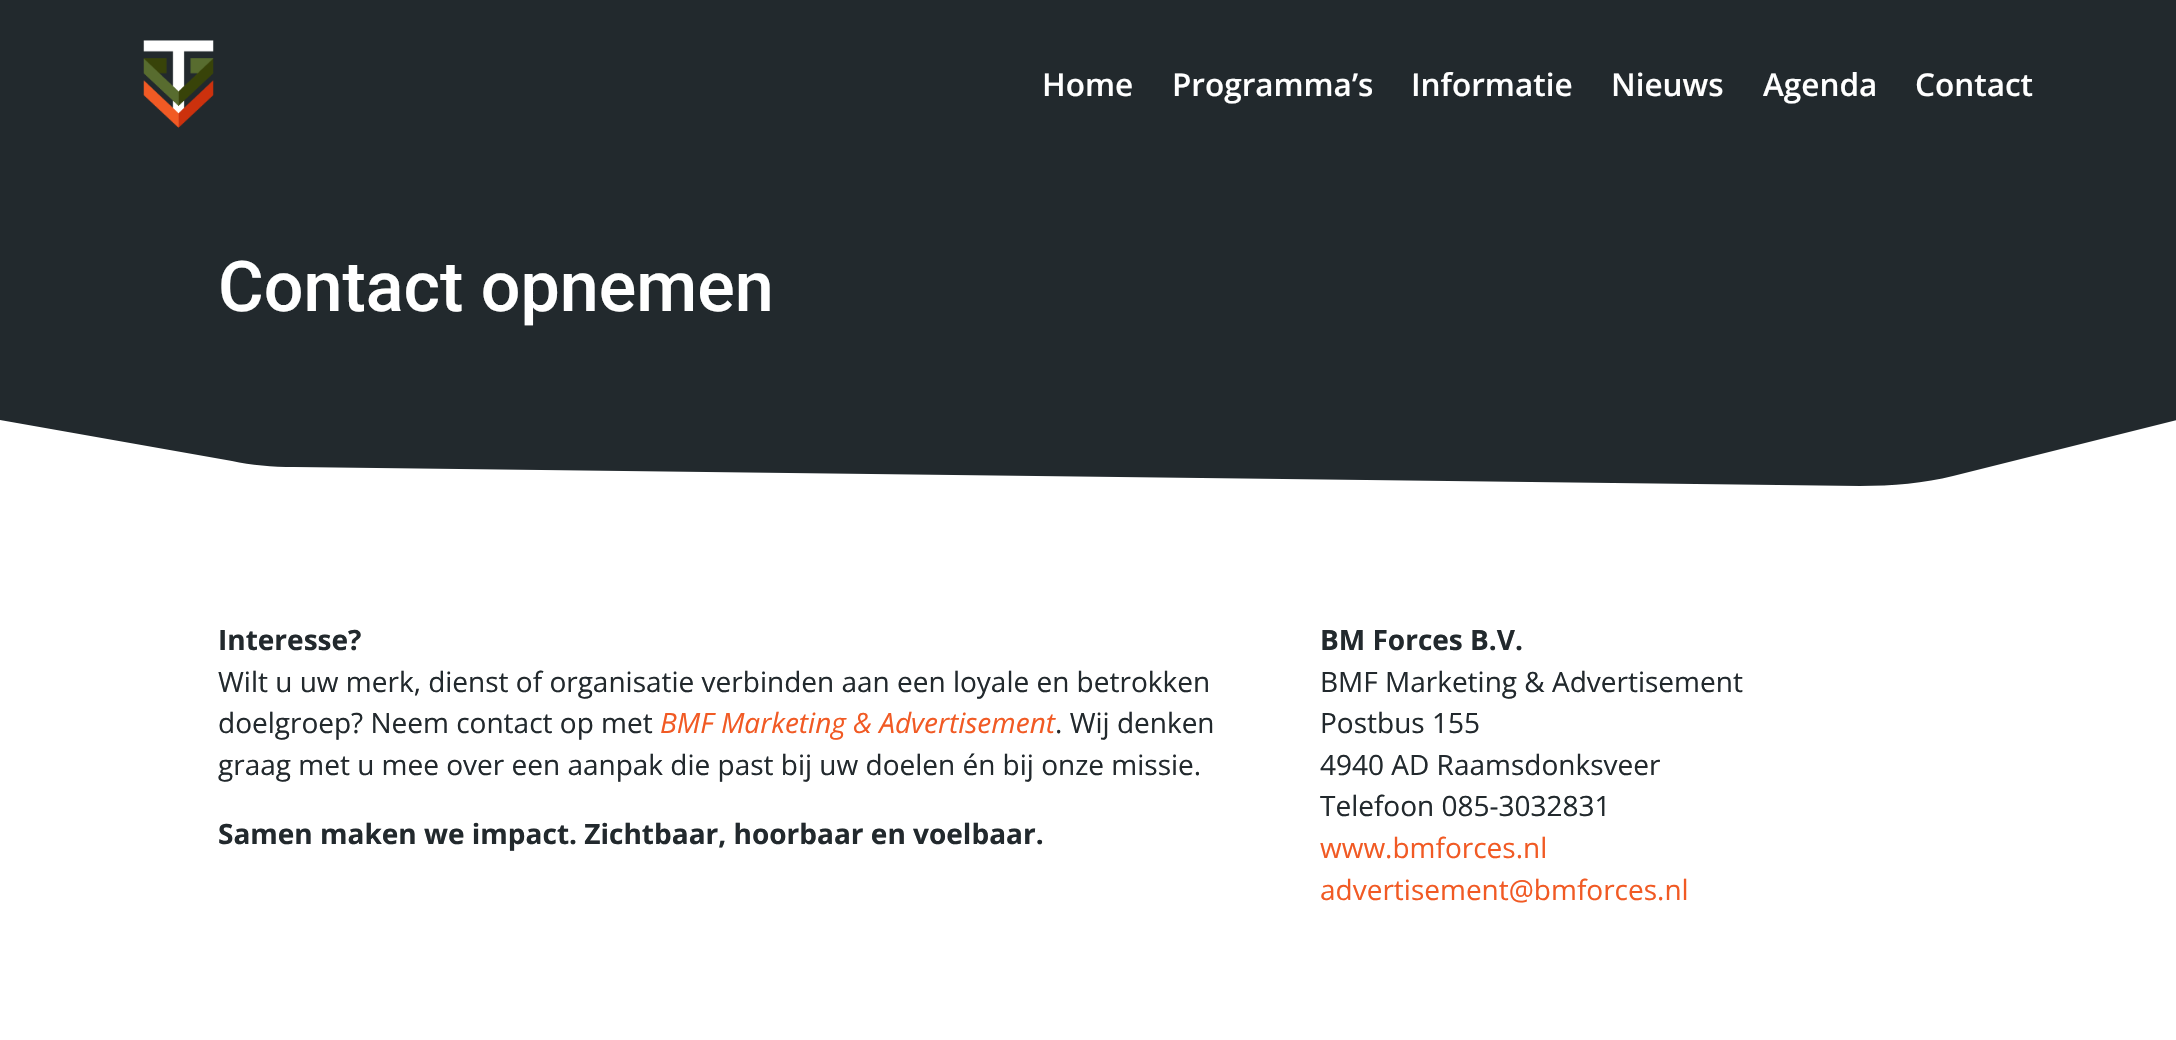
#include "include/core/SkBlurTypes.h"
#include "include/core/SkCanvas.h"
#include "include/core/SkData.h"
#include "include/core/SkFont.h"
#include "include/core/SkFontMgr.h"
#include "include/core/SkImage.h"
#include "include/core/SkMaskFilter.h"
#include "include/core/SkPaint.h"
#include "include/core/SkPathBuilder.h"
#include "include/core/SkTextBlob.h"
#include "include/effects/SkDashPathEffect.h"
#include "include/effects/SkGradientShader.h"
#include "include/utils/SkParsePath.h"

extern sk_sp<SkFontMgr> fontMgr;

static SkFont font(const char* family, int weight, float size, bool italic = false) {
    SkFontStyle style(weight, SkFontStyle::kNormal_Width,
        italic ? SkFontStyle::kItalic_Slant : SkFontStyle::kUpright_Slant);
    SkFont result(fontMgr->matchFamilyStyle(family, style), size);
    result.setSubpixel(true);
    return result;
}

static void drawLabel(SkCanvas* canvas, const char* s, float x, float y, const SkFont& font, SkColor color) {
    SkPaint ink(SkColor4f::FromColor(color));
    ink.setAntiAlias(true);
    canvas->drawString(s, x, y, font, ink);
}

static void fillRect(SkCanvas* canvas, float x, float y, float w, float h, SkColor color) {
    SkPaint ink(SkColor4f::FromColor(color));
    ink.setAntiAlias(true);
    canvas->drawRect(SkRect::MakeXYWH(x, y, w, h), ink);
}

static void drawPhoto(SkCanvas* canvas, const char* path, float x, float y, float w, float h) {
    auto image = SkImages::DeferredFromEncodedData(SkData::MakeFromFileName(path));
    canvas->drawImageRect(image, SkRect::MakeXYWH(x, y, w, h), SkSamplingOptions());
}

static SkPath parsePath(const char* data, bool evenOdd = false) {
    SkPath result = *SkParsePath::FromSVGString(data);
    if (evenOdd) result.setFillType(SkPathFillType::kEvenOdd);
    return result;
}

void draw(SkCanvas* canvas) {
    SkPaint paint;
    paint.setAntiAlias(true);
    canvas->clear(0xFFFFFFFF);
    fillRect(canvas, 0, 0, 2176, 486, 0xFF22292D);
    drawPhoto(canvas, "assets/img1.png", 143, 40, 71, 88);
    SkFont font1 = font("Open Sans", 600, 31.5f);
    drawLabel(canvas, "Home", 1042, 96, font1, 0xFFFFFFFF);
    drawLabel(canvas, "Programma’s", 1172, 96, font1, 0xFFFFFFFF);
    drawLabel(canvas, "Informatie", 1411, 96, font1, 0xFFFFFFFF);
    drawLabel(canvas, "Nieuws", 1611, 96, font1, 0xFFFFFFFF);
    drawLabel(canvas, "Agenda", 1763, 96, font1, 0xFFFFFFFF);
    drawLabel(canvas, "Contact", 1915, 96, font1, 0xFFFFFFFF);
    SkFont font2 = font("Roboto", 500, 70);
    drawLabel(canvas, "Contact opnemen", 218, 311, font2, 0xFFFFFFFF);
    paint.setColor(0xFFFFFFFF);
    canvas->drawPath(parsePath("M1860 486L294 467C272 467 251 465 232 461L0 420V490H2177V420L1953 476C1925 483 1892 486 1860 486Z"), paint);
    SkFont font3 = font("Open Sans", 700, 28);
    drawLabel(canvas, "Interesse?", 218, 650, font3, 0xFF22292D);
    SkFont font4 = font("Open Sans", 400, 28);
    drawLabel(canvas, "Wilt u uw merk, dienst of organisatie verbinden aan een loyale en betrokken", 218, 692, font4, 0xFF22292D);
    drawLabel(canvas, "doelgroep? Neem contact op met", 218, 733, font4, 0xFF22292D);
    SkFont font5 = font("Open Sans", 400, 28, true);
    drawLabel(canvas, "BMF Marketing & Advertisement", 660, 733, font5, 0xFFF15A24);
    drawLabel(canvas, ". Wij denken", 1055, 733, font4, 0xFF22292D);
    drawLabel(canvas, "graag met u mee over een aanpak die past bij uw doelen én bij onze missie.", 218, 775, font4, 0xFF22292D);
    drawLabel(canvas, "Samen maken we impact. Zichtbaar, hoorbaar en voelbaar.", 218, 844, font3, 0xFF22292D);
    drawLabel(canvas, "BM Forces B.V.", 1320, 650, font3, 0xFF22292D);
    drawLabel(canvas, "BMF Marketing & Advertisement", 1320, 692, font4, 0xFF22292D);
    drawLabel(canvas, "Postbus 155", 1320, 733, font4, 0xFF22292D);
    drawLabel(canvas, "4940 AD Raamsdonksveer", 1320, 775, font4, 0xFF22292D);
    drawLabel(canvas, "Telefoon 085-3032831", 1320, 816, font4, 0xFF22292D);
    drawLabel(canvas, "www.bmforces.nl", 1320, 858, font4, 0xFFF15A24);
    drawLabel(canvas, "advertisement@bmforces.nl", 1320, 900, font4, 0xFFF15A24);
}
